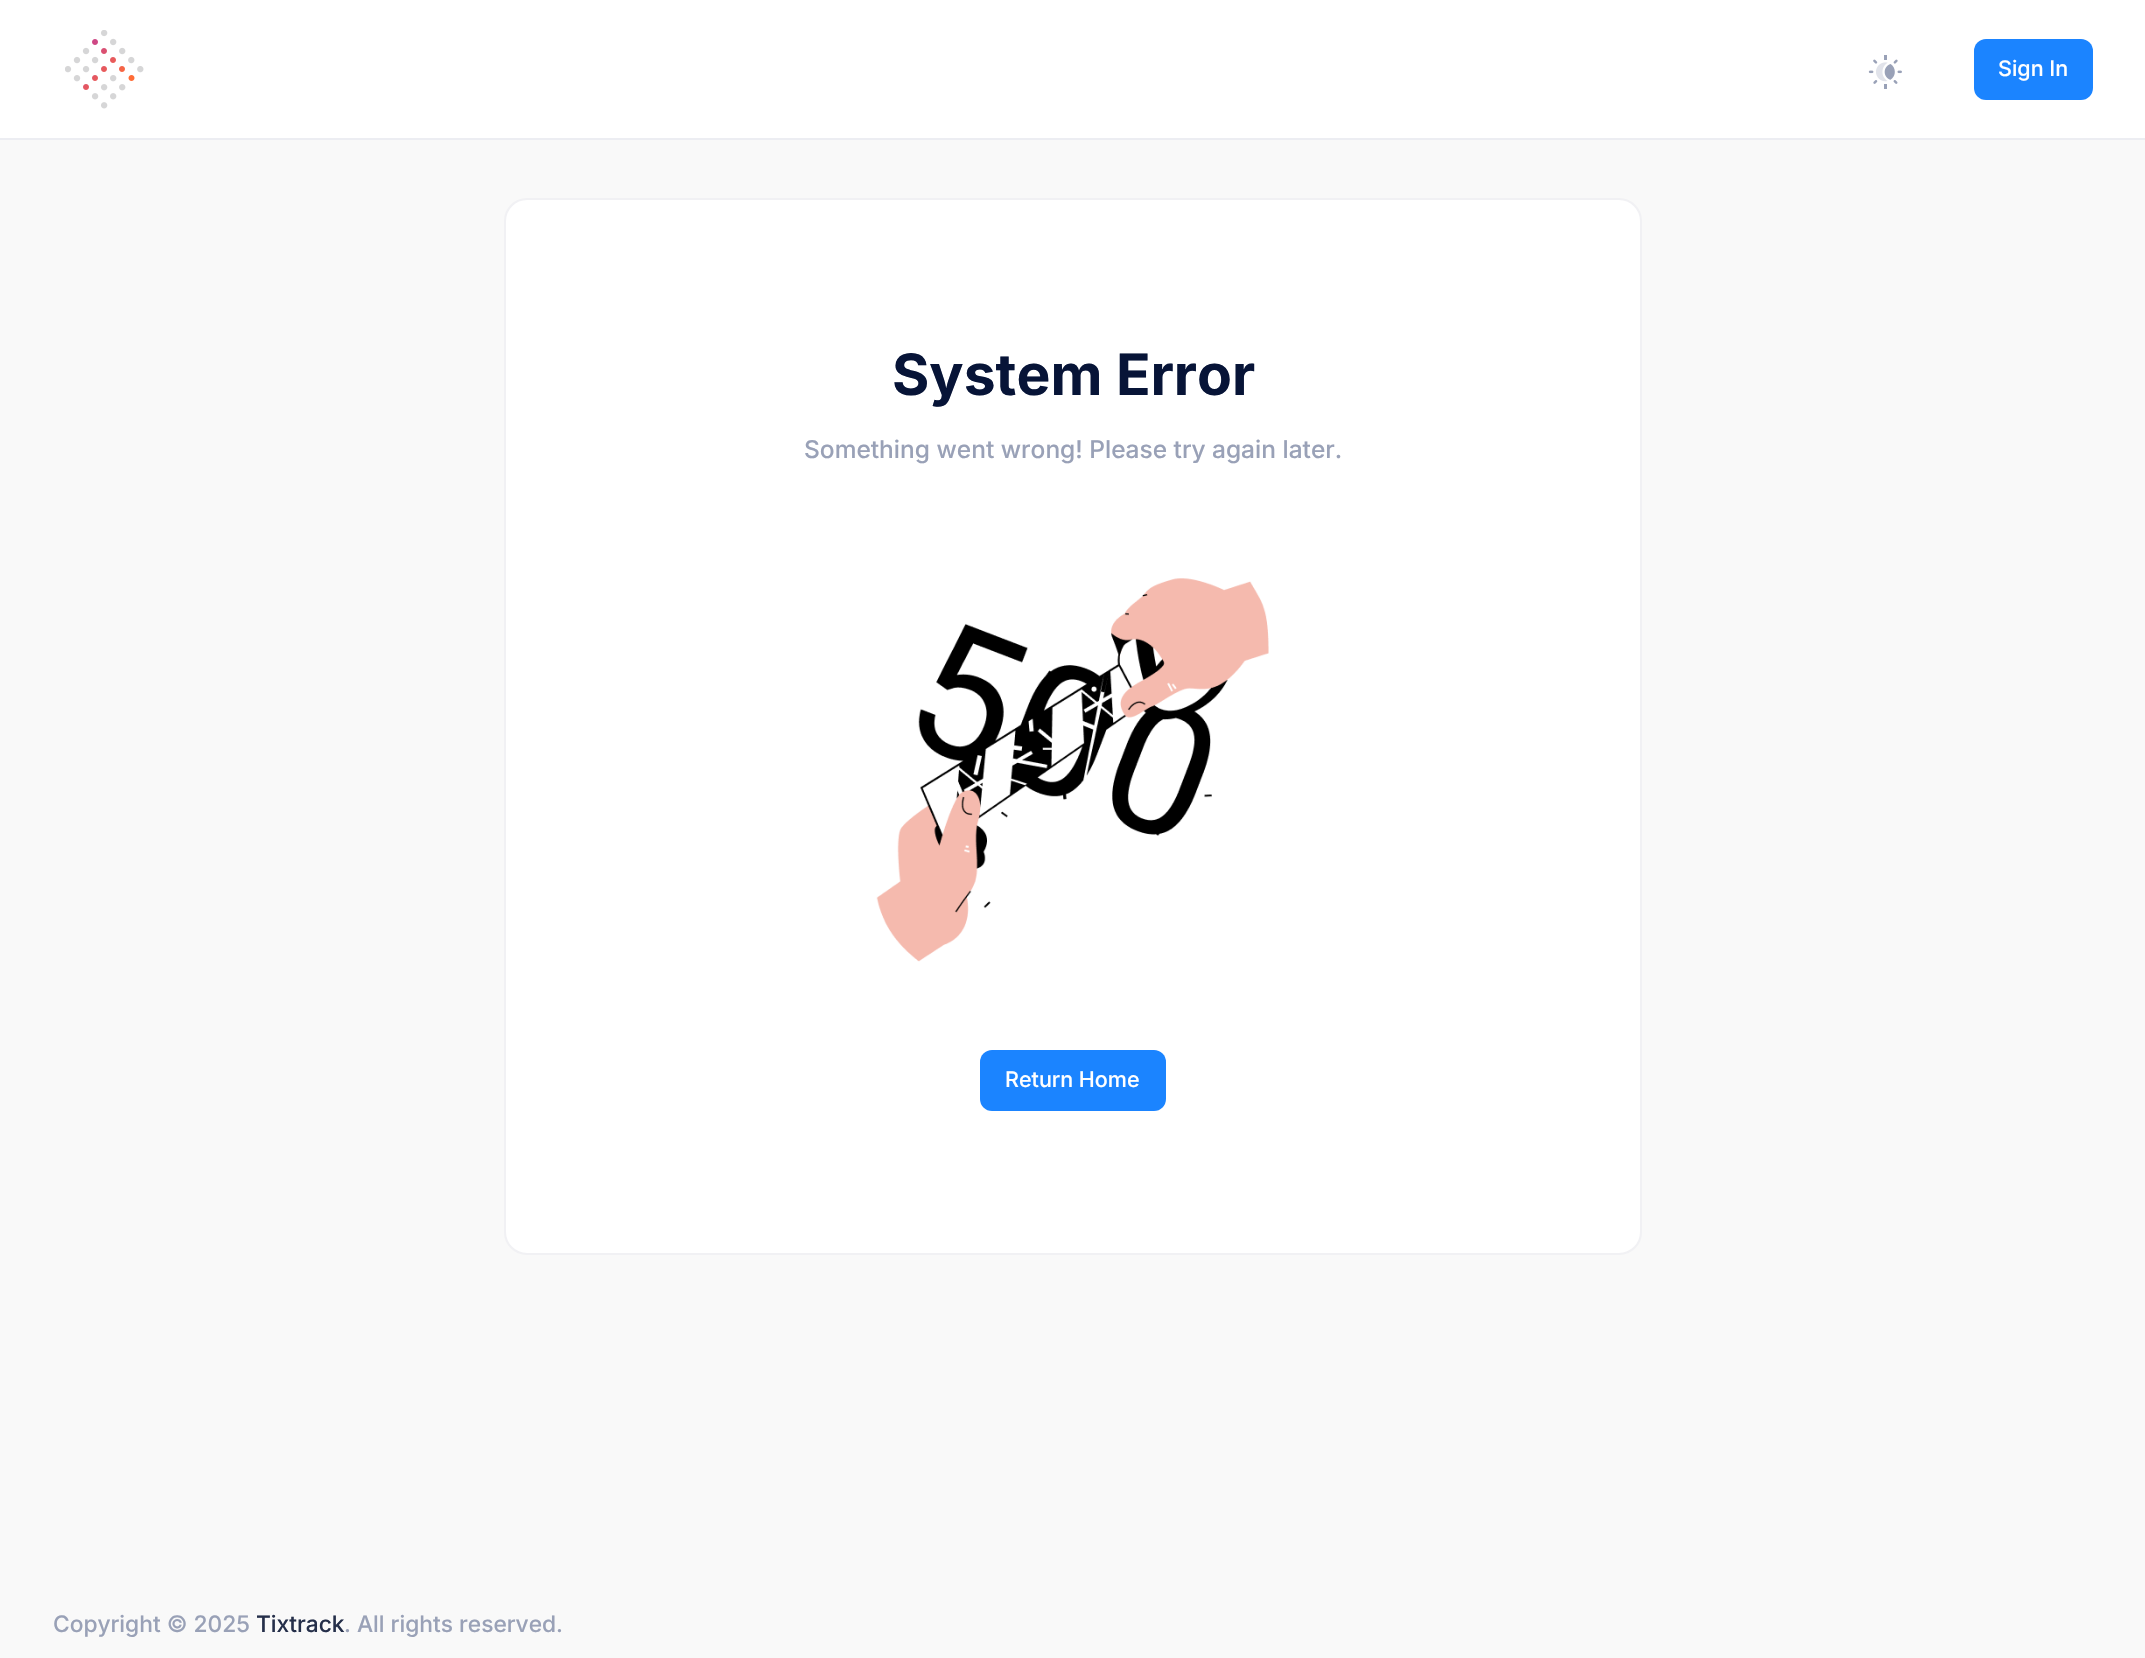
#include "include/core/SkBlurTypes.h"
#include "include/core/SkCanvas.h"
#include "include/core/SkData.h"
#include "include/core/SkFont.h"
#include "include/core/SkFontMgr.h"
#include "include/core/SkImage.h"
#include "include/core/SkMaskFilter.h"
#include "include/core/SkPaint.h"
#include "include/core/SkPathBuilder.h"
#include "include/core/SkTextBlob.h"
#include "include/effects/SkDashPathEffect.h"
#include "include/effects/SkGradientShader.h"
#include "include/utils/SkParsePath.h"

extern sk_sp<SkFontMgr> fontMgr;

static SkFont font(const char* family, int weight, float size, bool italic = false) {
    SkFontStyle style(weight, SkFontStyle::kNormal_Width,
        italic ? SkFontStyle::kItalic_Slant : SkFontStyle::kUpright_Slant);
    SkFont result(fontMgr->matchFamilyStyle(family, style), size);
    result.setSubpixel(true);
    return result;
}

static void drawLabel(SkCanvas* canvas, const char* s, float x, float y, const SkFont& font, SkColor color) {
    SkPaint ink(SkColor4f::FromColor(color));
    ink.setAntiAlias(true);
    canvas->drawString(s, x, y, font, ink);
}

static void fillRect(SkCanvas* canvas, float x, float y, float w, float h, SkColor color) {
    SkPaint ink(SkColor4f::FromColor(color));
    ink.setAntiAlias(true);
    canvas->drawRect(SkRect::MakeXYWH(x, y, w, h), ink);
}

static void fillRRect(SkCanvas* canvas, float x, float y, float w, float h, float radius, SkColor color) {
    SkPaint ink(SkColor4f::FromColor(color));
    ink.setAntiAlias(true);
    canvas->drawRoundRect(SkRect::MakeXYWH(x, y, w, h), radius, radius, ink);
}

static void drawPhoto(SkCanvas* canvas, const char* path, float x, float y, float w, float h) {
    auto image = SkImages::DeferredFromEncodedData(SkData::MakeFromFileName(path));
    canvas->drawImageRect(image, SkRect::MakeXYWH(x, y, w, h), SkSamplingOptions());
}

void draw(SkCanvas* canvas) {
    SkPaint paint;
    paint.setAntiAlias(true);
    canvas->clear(0xFFF9F9F9);
    fillRect(canvas, 0, 0, 2145, 138, 0xFFFFFFFF);
    fillRect(canvas, 0, 138, 2145, 2, 0xFFECEDF2);
    drawPhoto(canvas, "assets/img1.png", 65, 30, 79, 79);
    fillRect(canvas, 1884, 55, 3, 5, 0xFF99A1B7);
    drawPhoto(canvas, "assets/img6.png", 1884, 64, 11, 16);
    drawPhoto(canvas, "assets/img5.png", 1876, 62, 12, 20);
    drawPhoto(canvas, "assets/img2.png", 1873, 59, 5, 5);
    drawPhoto(canvas, "assets/img3.png", 1893, 59, 5, 5);
    drawPhoto(canvas, "assets/img4.png", 1868, 70, 6, 4);
    drawPhoto(canvas, "assets/img7.png", 1897, 70, 5, 4);
    drawPhoto(canvas, "assets/img8.png", 1873, 80, 5, 4);
    drawPhoto(canvas, "assets/img9.png", 1893, 80, 5, 4);
    fillRect(canvas, 1884, 84, 3, 5, 0xFF99A1B7);
    fillRRect(canvas, 1974, 39, 119, 61, 12, 0xFF1B84FF);
    SkFont font1 = font("Inter", 500, 21.5f);
    drawLabel(canvas, "Sign In", 1998, 76, font1, 0xFFFFFFFF);
    paint.setColor(0xFFFFFFFF);
    canvas->drawRoundRect(SkRect::MakeXYWH(505, 199, 1136, 1055), 22, 22, paint);
    paint.setStroke(true);
    paint.setStrokeWidth(2);
    paint.setColor(0xFFF1F1F4);
    canvas->drawRoundRect(SkRect::MakeXYWH(505, 199, 1136, 1055), 22, 22, paint);
    SkFont font2 = font("Inter", 700, 57);
    drawLabel(canvas, "System Error", 892, 395, font2, 0xFF071437);
    SkFont font3 = font("Inter", 500, 24.5f);
    drawLabel(canvas, "Something went wrong! Please try again later.", 804, 458, font3, 0xFF99A1B7);
    drawPhoto(canvas, "assets/img10.png", 876, 578, 393, 384);
    fillRRect(canvas, 980, 1050, 186, 61, 12, 0xFF1B84FF);
    drawLabel(canvas, "Return Home", 1005, 1087, font1, 0xFFFFFFFF);
    SkFont font4 = font("Inter", 500, 22.75f);
    drawLabel(canvas, "Copyright © 2025", 53, 1632, font4, 0xFF99A1B7);
    drawLabel(canvas, "Tixtrack", 256, 1632, font4, 0xFF252F4A);
    drawLabel(canvas, ". All rights reserved.", 344, 1632, font4, 0xFF99A1B7);
}
